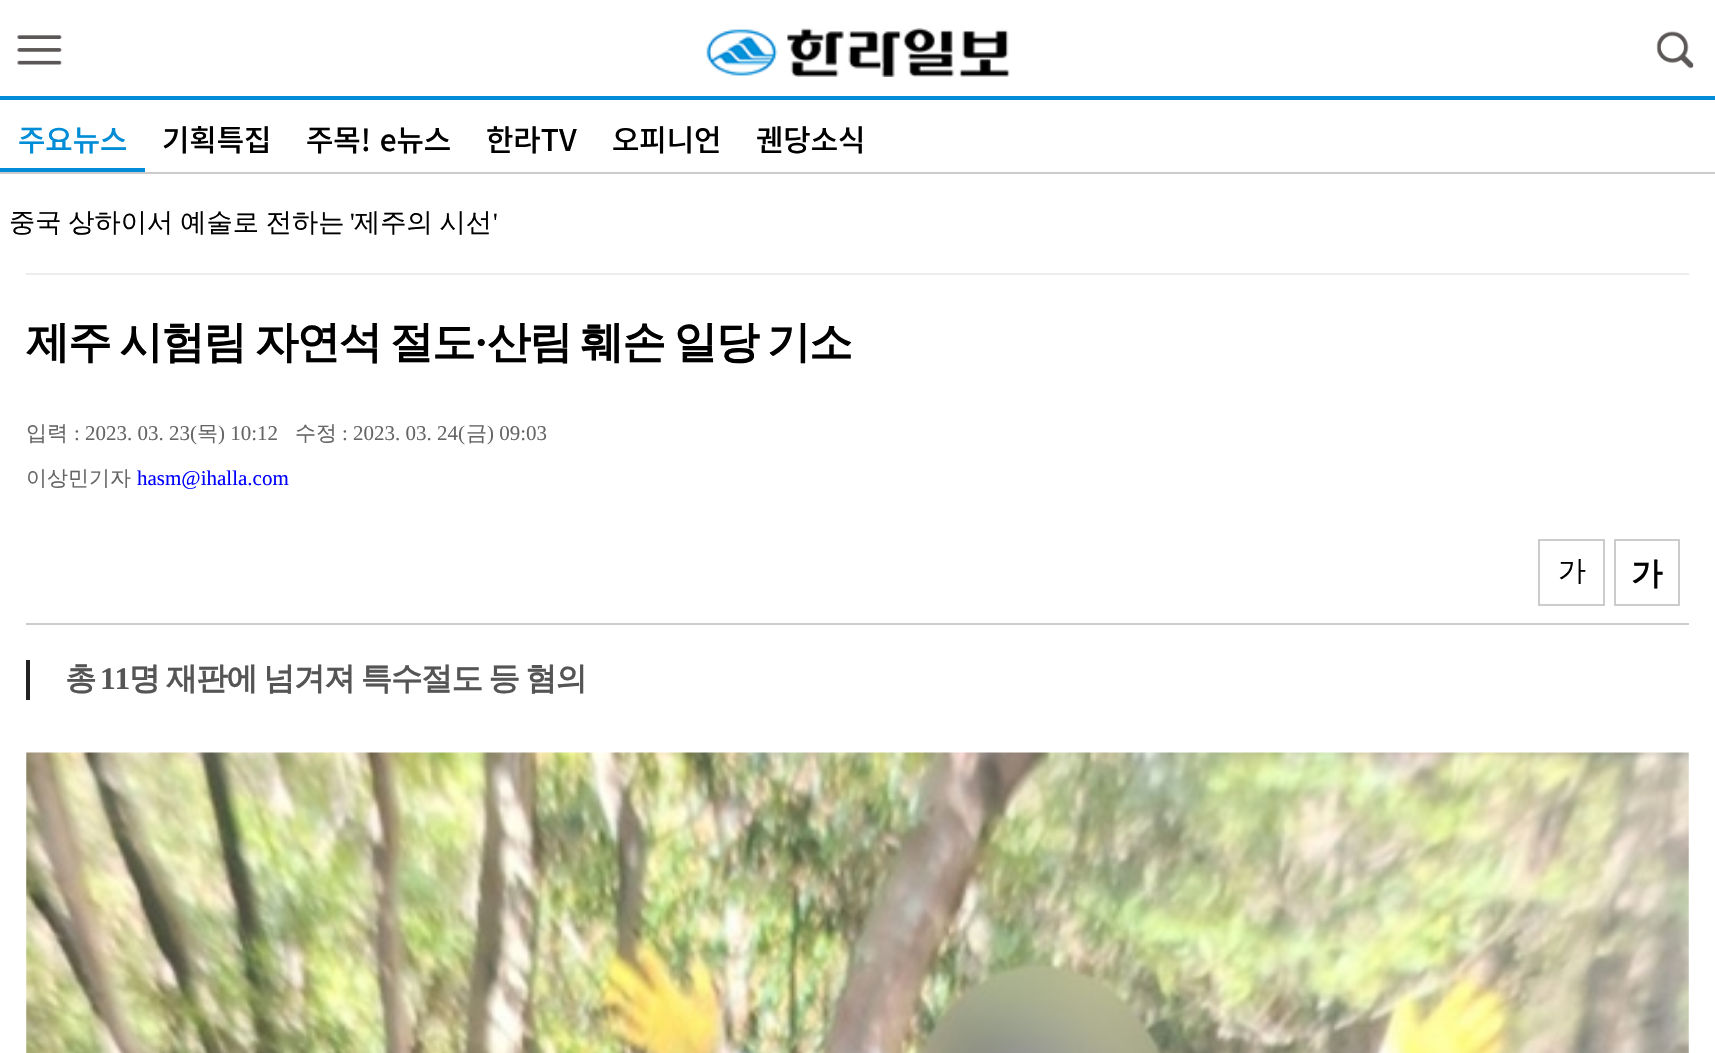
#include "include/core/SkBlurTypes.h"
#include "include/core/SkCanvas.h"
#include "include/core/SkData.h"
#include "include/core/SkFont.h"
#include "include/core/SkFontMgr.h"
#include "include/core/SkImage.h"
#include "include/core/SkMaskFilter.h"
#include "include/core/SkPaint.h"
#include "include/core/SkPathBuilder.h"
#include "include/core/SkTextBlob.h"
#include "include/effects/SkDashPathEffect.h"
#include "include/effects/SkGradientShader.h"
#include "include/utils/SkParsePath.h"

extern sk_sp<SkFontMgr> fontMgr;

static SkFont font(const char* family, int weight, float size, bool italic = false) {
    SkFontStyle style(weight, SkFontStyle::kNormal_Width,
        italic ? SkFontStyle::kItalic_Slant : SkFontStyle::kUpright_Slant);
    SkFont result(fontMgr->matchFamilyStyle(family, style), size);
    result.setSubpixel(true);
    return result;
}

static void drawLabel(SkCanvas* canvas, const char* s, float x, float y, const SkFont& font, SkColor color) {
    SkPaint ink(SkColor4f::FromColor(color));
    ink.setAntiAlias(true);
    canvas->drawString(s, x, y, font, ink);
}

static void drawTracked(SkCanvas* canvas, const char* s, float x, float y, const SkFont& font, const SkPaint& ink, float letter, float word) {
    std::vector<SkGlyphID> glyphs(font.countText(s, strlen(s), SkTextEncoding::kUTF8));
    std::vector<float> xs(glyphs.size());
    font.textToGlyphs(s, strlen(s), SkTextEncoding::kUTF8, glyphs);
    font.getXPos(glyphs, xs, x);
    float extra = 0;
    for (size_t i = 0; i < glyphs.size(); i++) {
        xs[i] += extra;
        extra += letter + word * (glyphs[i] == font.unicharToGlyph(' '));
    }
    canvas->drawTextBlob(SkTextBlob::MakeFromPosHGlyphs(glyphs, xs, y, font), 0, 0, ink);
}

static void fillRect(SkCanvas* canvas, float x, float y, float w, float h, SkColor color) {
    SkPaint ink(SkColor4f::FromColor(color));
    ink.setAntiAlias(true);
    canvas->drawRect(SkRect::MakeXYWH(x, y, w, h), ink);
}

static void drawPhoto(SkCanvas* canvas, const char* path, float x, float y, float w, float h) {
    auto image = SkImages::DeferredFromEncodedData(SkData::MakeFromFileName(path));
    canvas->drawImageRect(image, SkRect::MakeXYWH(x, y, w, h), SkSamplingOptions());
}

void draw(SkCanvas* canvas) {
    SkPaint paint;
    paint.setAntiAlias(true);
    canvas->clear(0xFFFFFFFF);
    drawPhoto(canvas, "assets/img1.png", 17, 35, 45, 30);
    drawPhoto(canvas, "assets/img2.png", 706, 28, 304, 49);
    drawPhoto(canvas, "assets/img3.png", 1656, 31, 38, 38);
    fillRect(canvas, 0, 96, 1715, 4, 0xFF008CD6);
    fillRect(canvas, 0, 172, 1715, 2, 0xFFCCCCCC);
    fillRect(canvas, 0, 168, 145, 4, 0xFF008CD6);
    SkFont font1 = font("Noto Sans KR", 500, 29.75f);
    drawLabel(canvas, "주요뉴스", 18, 151, font1, 0xFF008CD6);
    drawLabel(canvas, "기획특집", 162, 151, font1, 0xFF000000);
    paint.setColor(0xFF000000);
    drawTracked(canvas, "주목! e뉴스", 306, 151, font1, paint, 0, 2);
    drawLabel(canvas, "한라TV", 486, 151, font1, 0xFF000000);
    drawLabel(canvas, "오피니언", 612, 151, font1, 0xFF000000);
    drawLabel(canvas, "궨당소식", 756, 151, font1, 0xFF000000);
    SkFont font2 = font("WenQuanYi Zen Hei", 500, 26.25f);
    drawTracked(canvas, "중국 상하이서 예술로 전하는", 9, 231, font2, paint, 0, -1);
    SkFont font3 = font("Liberation Serif", 400, 26.25f);
    drawLabel(canvas, "'", 350, 231, font3, 0xFF000000);
    drawTracked(canvas, "제주의 시선", 354, 231, font2, paint, 0, -1);
    drawLabel(canvas, "'", 493, 231, font3, 0xFF000000);
    fillRect(canvas, 26, 273, 1663, 2, 0xFFECECEC);
    SkFont font4 = font("WenQuanYi Zen Hei", 700, 43.75f);
    drawTracked(canvas, "제주 시험림 자연석 절도", 26, 357, font4, paint, -1.75f, -2);
    SkFont font5 = font("Liberation Serif", 700, 43.75f);
    drawTracked(canvas, "·", 474, 357, font5, paint, -1.75f, 0);
    drawTracked(canvas, "산림 훼손 일당 기소", 487, 357, font4, paint, -1.75f, -2);
    SkFont font6 = font("WenQuanYi Zen Hei", 500, 21);
    drawLabel(canvas, "입력", 26, 440, font6, 0xFF666666);
    SkFont font7 = font("Liberation Serif", 400, 21);
    drawLabel(canvas, ": 2023. 03. 23(", 74, 440, font7, 0xFF666666);
    drawLabel(canvas, "목", 197, 440, font6, 0xFF666666);
    drawLabel(canvas, ") 10:12", 218, 440, font7, 0xFF666666);
    drawLabel(canvas, "수정", 295, 440, font6, 0xFF666666);
    drawLabel(canvas, ": 2023. 03. 24(", 342, 440, font7, 0xFF666666);
    drawLabel(canvas, "금", 466, 440, font6, 0xFF666666);
    drawLabel(canvas, ") 09:03", 487, 440, font7, 0xFF666666);
    drawLabel(canvas, "이상민기자", 26, 485, font6, 0xFF666666);
    drawLabel(canvas, "hasm@ihalla.com", 137, 485, font7, 0xFF0000FF);
    fillRect(canvas, 26, 623, 1663, 2, 0xFFCCCCCC);
    paint.setStroke(true);
    paint.setStrokeWidth(2);
    paint.setColor(0xFFCCCCCC);
    canvas->drawRect(SkRect::MakeXYWH(1539, 540, 65, 65), paint);
    SkFont font8 = font("WenQuanYi Zen Hei", 500, 28);
    drawLabel(canvas, "가", 1558, 580, font8, 0xFF000000);
    canvas->drawRect(SkRect::MakeXYWH(1615, 540, 64, 65), paint);
    SkFont font9 = font("WenQuanYi Zen Hei", 700, 31.5f);
    drawLabel(canvas, "가", 1631, 584, font9, 0xFF000000);
    fillRect(canvas, 26, 660, 4, 40, 0xFF222222);
    paint.setStroke(false);
    paint.setColor(0xFF555555);
    drawTracked(canvas, "총", 65, 689, font9, paint, -1.25f, 0);
    SkFont font10 = font("Liberation Serif", 700, 31.5f);
    drawTracked(canvas, "11", 100, 689, font10, paint, -1.25f, 0);
    drawTracked(canvas, "명 재판에 넘겨져 특수절도 등 혐의", 129, 689, font9, paint, -1.25f, -1.5f);
    drawPhoto(canvas, "assets/img4.png", 26, 752, 1663, 301);
}
